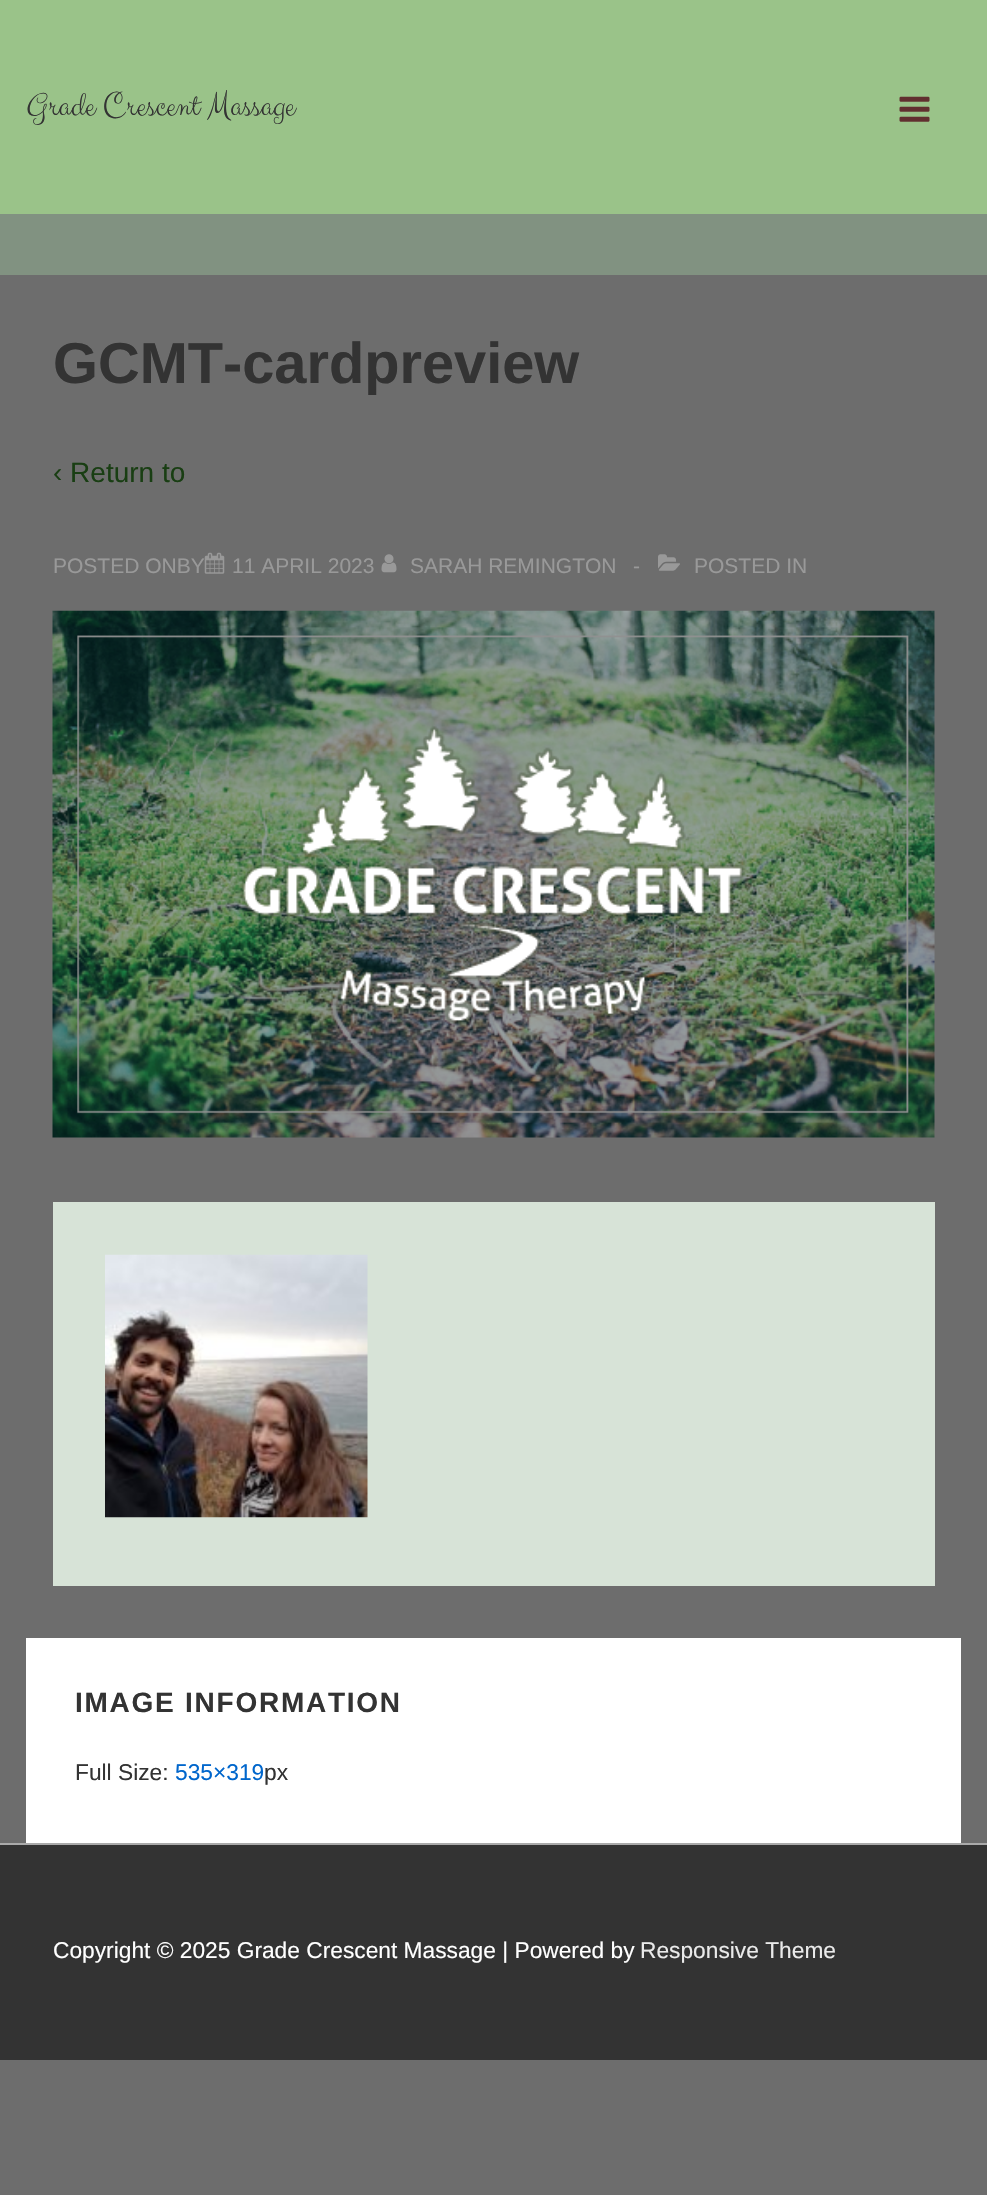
#include "include/core/SkBlurTypes.h"
#include "include/core/SkCanvas.h"
#include "include/core/SkData.h"
#include "include/core/SkFont.h"
#include "include/core/SkFontMgr.h"
#include "include/core/SkImage.h"
#include "include/core/SkMaskFilter.h"
#include "include/core/SkPaint.h"
#include "include/core/SkPathBuilder.h"
#include "include/core/SkTextBlob.h"
#include "include/effects/SkDashPathEffect.h"
#include "include/effects/SkGradientShader.h"
#include "include/utils/SkParsePath.h"

extern sk_sp<SkFontMgr> fontMgr;

static SkFont font(const char* family, int weight, float size, bool italic = false) {
    SkFontStyle style(weight, SkFontStyle::kNormal_Width,
        italic ? SkFontStyle::kItalic_Slant : SkFontStyle::kUpright_Slant);
    SkFont result(fontMgr->matchFamilyStyle(family, style), size);
    result.setSubpixel(true);
    return result;
}

static void drawLabel(SkCanvas* canvas, const char* s, float x, float y, const SkFont& font, SkColor color) {
    SkPaint ink(SkColor4f::FromColor(color));
    ink.setAntiAlias(true);
    canvas->drawString(s, x, y, font, ink);
}

static void drawTracked(SkCanvas* canvas, const char* s, float x, float y, const SkFont& font, const SkPaint& ink, float letter, float word) {
    std::vector<SkGlyphID> glyphs(font.countText(s, strlen(s), SkTextEncoding::kUTF8));
    std::vector<float> xs(glyphs.size());
    font.textToGlyphs(s, strlen(s), SkTextEncoding::kUTF8, glyphs);
    font.getXPos(glyphs, xs, x);
    float extra = 0;
    for (size_t i = 0; i < glyphs.size(); i++) {
        xs[i] += extra;
        extra += letter + word * (glyphs[i] == font.unicharToGlyph(' '));
    }
    canvas->drawTextBlob(SkTextBlob::MakeFromPosHGlyphs(glyphs, xs, y, font), 0, 0, ink);
}

static void fillRect(SkCanvas* canvas, float x, float y, float w, float h, SkColor color) {
    SkPaint ink(SkColor4f::FromColor(color));
    ink.setAntiAlias(true);
    canvas->drawRect(SkRect::MakeXYWH(x, y, w, h), ink);
}

static void drawPhoto(SkCanvas* canvas, const char* path, float x, float y, float w, float h) {
    auto image = SkImages::DeferredFromEncodedData(SkData::MakeFromFileName(path));
    canvas->drawImageRect(image, SkRect::MakeXYWH(x, y, w, h), SkSamplingOptions());
}

void draw(SkCanvas* canvas) {
    SkPaint paint;
    paint.setAntiAlias(true);
    canvas->clear(0xFF6D6D6D);
    fillRect(canvas, 0, 0, 987, 214, 0xFF9AC389);
    fillRect(canvas, 0, 214, 987, 61, 0xFF819281);
    SkFont font1 = font("Clicker Script", 400, 35);
    drawLabel(canvas, "Grade Crescent Massage", 26, 116, font1, 0xFF333333);
    drawPhoto(canvas, "assets/img1.png", 899, 96, 31, 26);
    SkFont font2 = font("Liberation Sans", 700, 57.75f);
    drawLabel(canvas, "GCMT-cardpreview", 53, 383, font2, 0xFF333333);
    SkFont font3 = font("Liberation Sans", 400, 28);
    drawLabel(canvas, "‹ Return to", 53, 482, font3, 0xFF193E13);
    SkFont font4 = font("Liberation Sans", 400, 21);
    drawLabel(canvas, "POSTED ONBY", 53, 573, font4, 0xFF999999);
    drawPhoto(canvas, "assets/img2.png", 204, 552, 21, 22);
    drawLabel(canvas, "11 APRIL 2023", 232, 573, font4, 0xFF999999);
    drawPhoto(canvas, "assets/img3.png", 381, 554, 16, 19);
    drawLabel(canvas, "SARAH REMINGTON", 410, 573, font4, 0xFF999999);
    drawLabel(canvas, "-", 633, 573, font4, 0xFF999999);
    drawPhoto(canvas, "assets/img4.png", 658, 554, 22, 17);
    drawLabel(canvas, "POSTED IN", 694, 573, font4, 0xFF999999);
    drawPhoto(canvas, "assets/img5.png", 52, 610, 883, 528);
    fillRect(canvas, 53, 1202, 882, 384, 0xFFD7E3D7);
    drawPhoto(canvas, "assets/img6.png", 105, 1254, 263, 264);
    fillRect(canvas, 26, 1638, 935, 205, 0xFFFFFFFF);
    SkFont font5 = font("Liberation Sans", 700, 28);
    paint.setColor(0xFF333333);
    drawTracked(canvas, "IMAGE INFORMATION", 75, 1712, font5, paint, 1.75f, 0);
    SkFont font6 = font("Liberation Sans", 400, 22.75f);
    drawLabel(canvas, "Full Size:", 75, 1780, font6, 0xFF333333);
    drawLabel(canvas, "535×319", 175, 1780, font6, 0xFF0066CC);
    drawLabel(canvas, "px", 264, 1780, font6, 0xFF333333);
    fillRect(canvas, 0, 1845, 987, 215, 0xFF333333);
    fillRect(canvas, 0, 1843, 987, 2, 0xFFAAAAAA);
    drawLabel(canvas, "Copyright © 2025 Grade Crescent Massage | Powered by", 53, 1958, font6, 0xFFFFFFFF);
    drawLabel(canvas, "Responsive Theme", 640, 1958, font6, 0xFFEAEAEA);
}
